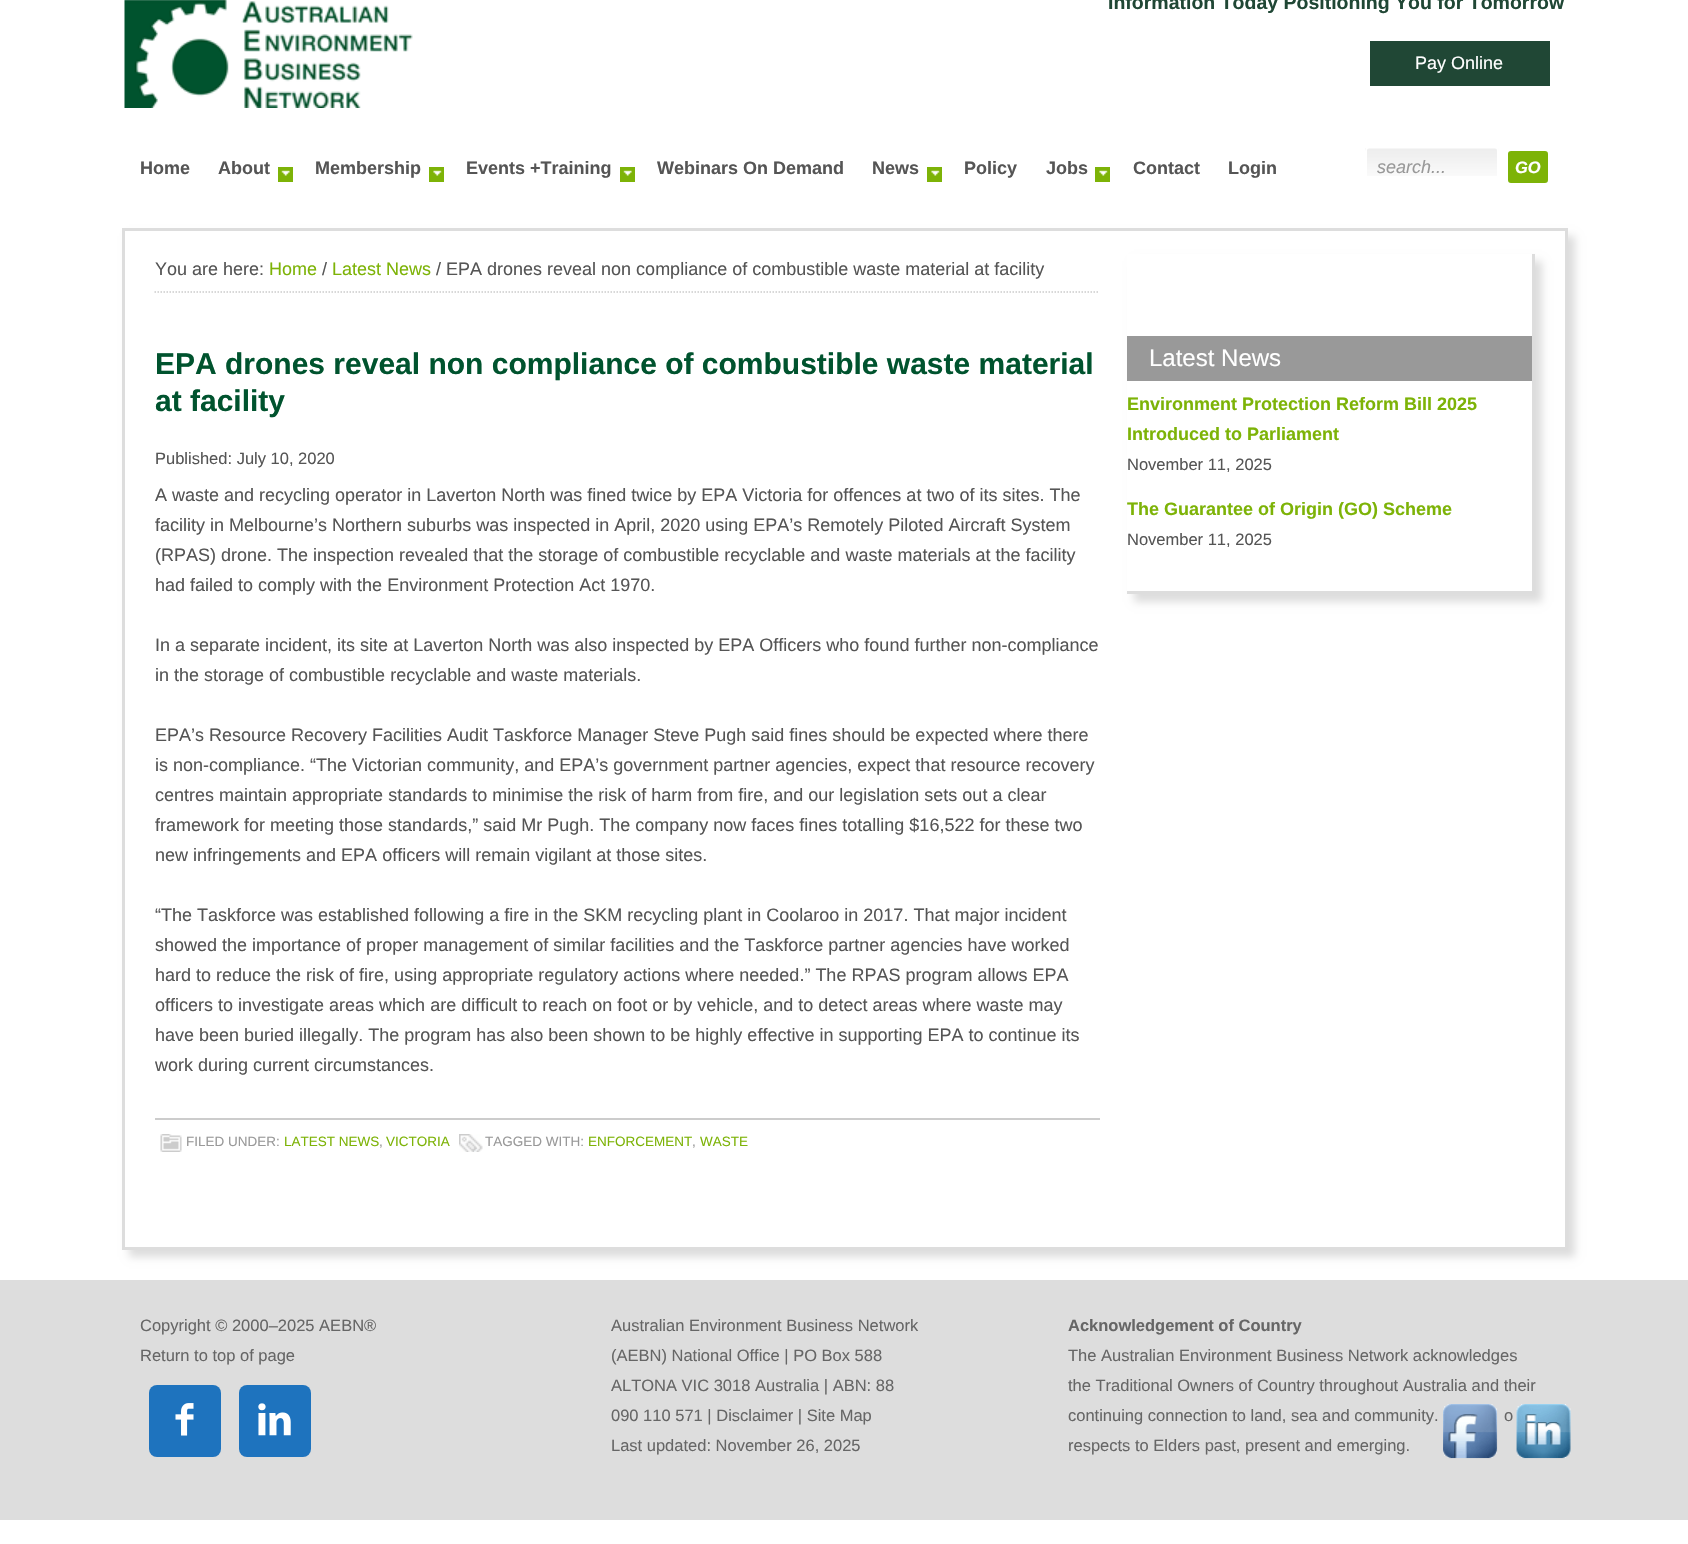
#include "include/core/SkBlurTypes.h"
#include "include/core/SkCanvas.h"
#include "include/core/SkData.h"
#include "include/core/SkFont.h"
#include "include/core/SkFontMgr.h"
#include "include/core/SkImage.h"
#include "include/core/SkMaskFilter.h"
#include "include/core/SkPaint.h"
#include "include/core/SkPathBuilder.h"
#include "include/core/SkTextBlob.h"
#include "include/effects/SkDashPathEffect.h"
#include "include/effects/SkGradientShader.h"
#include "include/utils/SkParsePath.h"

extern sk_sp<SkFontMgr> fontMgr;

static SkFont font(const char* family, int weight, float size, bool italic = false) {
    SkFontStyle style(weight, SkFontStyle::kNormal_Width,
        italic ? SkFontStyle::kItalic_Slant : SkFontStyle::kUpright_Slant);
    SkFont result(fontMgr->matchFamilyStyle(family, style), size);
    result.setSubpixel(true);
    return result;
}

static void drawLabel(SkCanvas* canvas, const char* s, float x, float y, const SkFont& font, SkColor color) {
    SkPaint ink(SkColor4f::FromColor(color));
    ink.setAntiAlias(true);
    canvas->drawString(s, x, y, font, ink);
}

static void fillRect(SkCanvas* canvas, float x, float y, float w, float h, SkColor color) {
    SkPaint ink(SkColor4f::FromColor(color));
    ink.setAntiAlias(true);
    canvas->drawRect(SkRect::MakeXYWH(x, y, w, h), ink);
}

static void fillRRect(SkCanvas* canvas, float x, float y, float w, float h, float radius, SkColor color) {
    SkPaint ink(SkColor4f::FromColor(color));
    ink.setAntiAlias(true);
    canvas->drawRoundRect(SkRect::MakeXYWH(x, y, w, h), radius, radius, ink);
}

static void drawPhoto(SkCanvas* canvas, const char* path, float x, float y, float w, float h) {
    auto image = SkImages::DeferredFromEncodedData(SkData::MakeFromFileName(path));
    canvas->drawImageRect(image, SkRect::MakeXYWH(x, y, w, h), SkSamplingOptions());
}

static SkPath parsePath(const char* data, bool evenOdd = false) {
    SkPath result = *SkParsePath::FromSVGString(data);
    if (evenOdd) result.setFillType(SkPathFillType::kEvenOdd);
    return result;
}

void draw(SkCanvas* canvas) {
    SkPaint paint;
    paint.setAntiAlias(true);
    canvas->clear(0xFFFFFFFF);
    drawPhoto(canvas, "assets/img1.png", 124, 0, 289, 108);
    SkFont font1 = font("Liberation Sans", 700, 19.5f);
    drawLabel(canvas, "Information Today Positioning You for Tomorrow", 1108, 9, font1, 0xFF204735);
    fillRect(canvas, 1370, 41, 180, 45, 0xFF204735);
    SkFont font2 = font("Liberation Sans", 400, 18);
    drawLabel(canvas, "Pay Online", 1415, 69, font2, 0xFFFFFFFF);
    SkFont font3 = font("Liberation Sans", 700, 18);
    drawLabel(canvas, "Home", 140, 174, font3, 0xFF555555);
    drawLabel(canvas, "About", 218, 174, font3, 0xFF555555);
    fillRect(canvas, 278, 167, 15, 15, 0xFF7DB307);
    drawPhoto(canvas, "assets/img2.png", 281, 170, 9, 6);
    drawLabel(canvas, "Membership", 315, 174, font3, 0xFF555555);
    fillRect(canvas, 429, 167, 15, 15, 0xFF7DB307);
    drawPhoto(canvas, "assets/img3.png", 433, 170, 9, 6);
    drawLabel(canvas, "Events +Training", 466, 174, font3, 0xFF555555);
    fillRect(canvas, 620, 167, 15, 15, 0xFF7DB307);
    drawPhoto(canvas, "assets/img2.png", 623, 170, 9, 6);
    drawLabel(canvas, "Webinars On Demand", 657, 174, font3, 0xFF555555);
    drawLabel(canvas, "News", 872, 174, font3, 0xFF555555);
    fillRect(canvas, 927, 167, 15, 15, 0xFF7DB307);
    drawPhoto(canvas, "assets/img3.png", 931, 170, 9, 6);
    drawLabel(canvas, "Policy", 964, 174, font3, 0xFF555555);
    drawLabel(canvas, "Jobs", 1046, 174, font3, 0xFF555555);
    fillRect(canvas, 1095, 167, 15, 15, 0xFF7DB307);
    drawPhoto(canvas, "assets/img3.png", 1099, 170, 9, 6);
    drawLabel(canvas, "Contact", 1133, 174, font3, 0xFF555555);
    drawLabel(canvas, "Login", 1228, 174, font3, 0xFF555555);
    drawPhoto(canvas, "assets/img4.png", 1365, 148, 134, 28);
    paint.setStroke(true);
    paint.setStrokeWidth(2);
    paint.setColor(0xFFFFFFFF);
    canvas->drawRoundRect(SkRect::MakeXYWH(1366, 147, 132, 40), 4, 4, paint);
    SkFont font4 = font("Liberation Sans", 400, 18, true);
    drawLabel(canvas, "search...", 1377, 173, font4, 0xFF999999);
    paint.setStroke(false);
    paint.setColor(0xFF7DB307);
    canvas->drawRoundRect(SkRect::MakeXYWH(1507, 150, 42, 34), 4, 4, paint);
    paint.setStroke(true);
    paint.setColor(0xFFFFFFFF);
    canvas->drawRoundRect(SkRect::MakeXYWH(1507, 150, 42, 34), 4, 4, paint);
    SkFont font5 = font("Liberation Sans", 700, 16.5f, true);
    drawLabel(canvas, "GO", 1515, 173, font5, 0xFFFFFFFF);
    paint.setStroke(false);
    paint.setColor(0xFFDDDDDD);
    paint.setMaskFilter(SkMaskFilter::MakeBlur(kNormal_SkBlurStyle, 4));
    canvas->drawRect(SkRect::MakeXYWH(129, 236, 1446, 1021), paint);
    paint.setMaskFilter(nullptr);
    paint.setColor(0xFFFFFFFF);
    canvas->drawRect(SkRect::MakeXYWH(123.5f, 229.5f, 1443, 1019), paint);
    paint.setStroke(true);
    paint.setStrokeWidth(3);
    paint.setColor(0xFFDDDDDD);
    canvas->drawRect(SkRect::MakeXYWH(123.5f, 229.5f, 1443, 1019), paint);
    paint.setStrokeWidth(1.5f);
    paint.setColor(0xFFCCCCCC);
    paint.setPathEffect(SkDashPathEffect::Make({{1.5f, 1.5f}}, 0));
    canvas->drawPath(parsePath("M154.5 292H1099.5"), paint);
    paint.setPathEffect(nullptr);
    drawLabel(canvas, "You are here:", 155, 275, font2, 0xFF555555);
    drawLabel(canvas, "Home", 269, 275, font2, 0xFF7DB307);
    drawLabel(canvas, "/", 322, 275, font2, 0xFF555555);
    drawLabel(canvas, "Latest News", 332, 275, font2, 0xFF7DB307);
    drawLabel(canvas, "/ EPA drones reveal non compliance of combustible waste material at facility", 436, 275, font2, 0xFF555555);
    SkFont font6 = font("Liberation Sans", 700, 30);
    drawLabel(canvas, "EPA drones reveal non compliance of combustible waste material", 155, 374, font6, 0xFF00532E);
    drawLabel(canvas, "at facility", 155, 411, font6, 0xFF00532E);
    SkFont font7 = font("Liberation Sans", 400, 16.5f);
    drawLabel(canvas, "Published: July 10, 2020", 155, 464, font7, 0xFF555555);
    drawLabel(canvas, "A waste and recycling operator in Laverton North was fined twice by EPA Victoria for offences at two of its sites. The", 155, 501, font2, 0xFF555555);
    drawLabel(canvas, "facility in Melbourne’s Northern suburbs was inspected in April, 2020 using EPA’s Remotely Piloted Aircraft System", 155, 531, font2, 0xFF555555);
    drawLabel(canvas, "(RPAS) drone. The inspection revealed that the storage of combustible recyclable and waste materials at the facility", 155, 561, font2, 0xFF555555);
    drawLabel(canvas, "had failed to comply with the Environment Protection Act 1970.", 155, 591, font2, 0xFF555555);
    drawLabel(canvas, "In a separate incident, its site at Laverton North was also inspected by EPA Officers who found further non-compliance", 155, 651, font2, 0xFF555555);
    drawLabel(canvas, "in the storage of combustible recyclable and waste materials.", 155, 681, font2, 0xFF555555);
    drawLabel(canvas, "EPA’s Resource Recovery Facilities Audit Taskforce Manager Steve Pugh said fines should be expected where there", 155, 741, font2, 0xFF555555);
    drawLabel(canvas, "is non-compliance. “The Victorian community, and EPA’s government partner agencies, expect that resource recovery", 155, 771, font2, 0xFF555555);
    drawLabel(canvas, "centres maintain appropriate standards to minimise the risk of harm from fire, and our legislation sets out a clear", 155, 801, font2, 0xFF555555);
    drawLabel(canvas, "framework for meeting those standards,” said Mr Pugh. The company now faces fines totalling $16,522 for these two", 155, 831, font2, 0xFF555555);
    drawLabel(canvas, "new infringements and EPA officers will remain vigilant at those sites.", 155, 861, font2, 0xFF555555);
    drawLabel(canvas, "“The Taskforce was established following a fire in the SKM recycling plant in Coolaroo in 2017. That major incident", 155, 921, font2, 0xFF555555);
    drawLabel(canvas, "showed the importance of proper management of similar facilities and the Taskforce partner agencies have worked", 155, 951, font2, 0xFF555555);
    drawLabel(canvas, "hard to reduce the risk of fire, using appropriate regulatory actions where needed.” The RPAS program allows EPA", 155, 981, font2, 0xFF555555);
    drawLabel(canvas, "officers to investigate areas which are difficult to reach on foot or by vehicle, and to detect areas where waste may", 155, 1011, font2, 0xFF555555);
    drawLabel(canvas, "have been buried illegally. The program has also been shown to be highly effective in supporting EPA to continue its", 155, 1041, font2, 0xFF555555);
    drawLabel(canvas, "work during current circumstances.", 155, 1071, font2, 0xFF555555);
    fillRect(canvas, 155, 1118, 945, 2, 0xFFCCCCCC);
    drawPhoto(canvas, "assets/img5.png", 160, 1134, 22, 18);
    SkFont font8 = font("Liberation Sans", 400, 13.5f);
    drawLabel(canvas, "FILED UNDER:", 186, 1146, font8, 0xFF999999);
    drawLabel(canvas, "LATEST NEWS", 284, 1146, font8, 0xFF7DB307);
    drawLabel(canvas, ",", 379, 1146, font8, 0xFF999999);
    drawLabel(canvas, "VICTORIA", 386, 1146, font8, 0xFF7DB307);
    drawPhoto(canvas, "assets/img6.png", 459, 1134, 24, 18);
    drawLabel(canvas, "TAGGED WITH:", 485, 1146, font8, 0xFF999999);
    drawLabel(canvas, "ENFORCEMENT", 588, 1146, font8, 0xFF7DB307);
    drawLabel(canvas, ",", 692, 1146, font8, 0xFF999999);
    drawLabel(canvas, "WASTE", 700, 1146, font8, 0xFF7DB307);
    canvas->save();
    canvas->clipPath(parsePath("M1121 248H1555V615H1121ZM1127 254H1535V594H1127Z", true), true);
    paint.setStroke(false);
    paint.setColor(0xFFDDDDDD);
    paint.setMaskFilter(SkMaskFilter::MakeBlur(kNormal_SkBlurStyle, 4));
    canvas->drawRect(SkRect::MakeXYWH(1134, 261, 408, 341), paint);
    paint.setMaskFilter(nullptr);
    canvas->restore();
    fillRect(canvas, 1532, 254, 3, 340, 0xFFDDDDDD);
    fillRect(canvas, 1127, 591, 408, 3, 0xFFDDDDDD);
    fillRect(canvas, 1127, 336, 405, 45, 0xFF999999);
    SkFont font9 = font("Liberation Sans", 400, 24);
    drawLabel(canvas, "Latest News", 1149, 366, font9, 0xFFFFFFFF);
    drawLabel(canvas, "Environment Protection Reform Bill 2025", 1127, 410, font3, 0xFF7DB307);
    drawLabel(canvas, "Introduced to Parliament", 1127, 440, font3, 0xFF7DB307);
    drawLabel(canvas, "November 11, 2025", 1127, 470, font7, 0xFF555555);
    drawLabel(canvas, "The Guarantee of Origin (GO) Scheme", 1127, 515, font3, 0xFF7DB307);
    drawLabel(canvas, "November 11, 2025", 1127, 545, font7, 0xFF555555);
    fillRect(canvas, 0, 1280, 1688, 240, 0xFFDDDDDD);
    drawLabel(canvas, "Copyright © 2000–2025 AEBN®", 140, 1331, font7, 0xFF666666);
    drawLabel(canvas, "Return to top of page", 140, 1361, font7, 0xFF666666);
    fillRRect(canvas, 149, 1385, 72, 72, 8, 0xFF1E73BE);
    drawPhoto(canvas, "assets/img7.png", 175, 1403, 19, 33);
    fillRRect(canvas, 239, 1385, 72, 72, 8, 0xFF1E73BE);
    drawPhoto(canvas, "assets/img8.png", 258, 1403, 33, 33);
    drawLabel(canvas, "Australian Environment Business Network", 611, 1331, font7, 0xFF666666);
    drawLabel(canvas, "(AEBN) National Office | PO Box 588", 611, 1361, font7, 0xFF666666);
    drawLabel(canvas, "ALTONA VIC 3018 Australia | ABN: 88", 611, 1391, font7, 0xFF666666);
    drawLabel(canvas, "090 110 571 | Disclaimer | Site Map", 611, 1421, font7, 0xFF666666);
    drawLabel(canvas, "Last updated: November 26, 2025", 611, 1451, font7, 0xFF666666);
    SkFont font10 = font("Liberation Sans", 700, 16.5f);
    drawLabel(canvas, "Acknowledgement of Country", 1068, 1331, font10, 0xFF666666);
    drawLabel(canvas, "The Australian Environment Business Network acknowledges", 1068, 1361, font7, 0xFF666666);
    drawLabel(canvas, "the Traditional Owners of Country throughout Australia and their", 1068, 1391, font7, 0xFF666666);
    drawLabel(canvas, "continuing connection to land, sea and community.", 1068, 1421, font7, 0xFF666666);
    drawLabel(canvas, "o", 1504, 1421, font7, 0xFF666666);
    drawLabel(canvas, "respects to Elders past, present and emerging.", 1068, 1451, font7, 0xFF666666);
    drawPhoto(canvas, "assets/img9.png", 1443, 1404, 55, 55);
    drawPhoto(canvas, "assets/img10.png", 1516, 1404, 55, 55);
}
